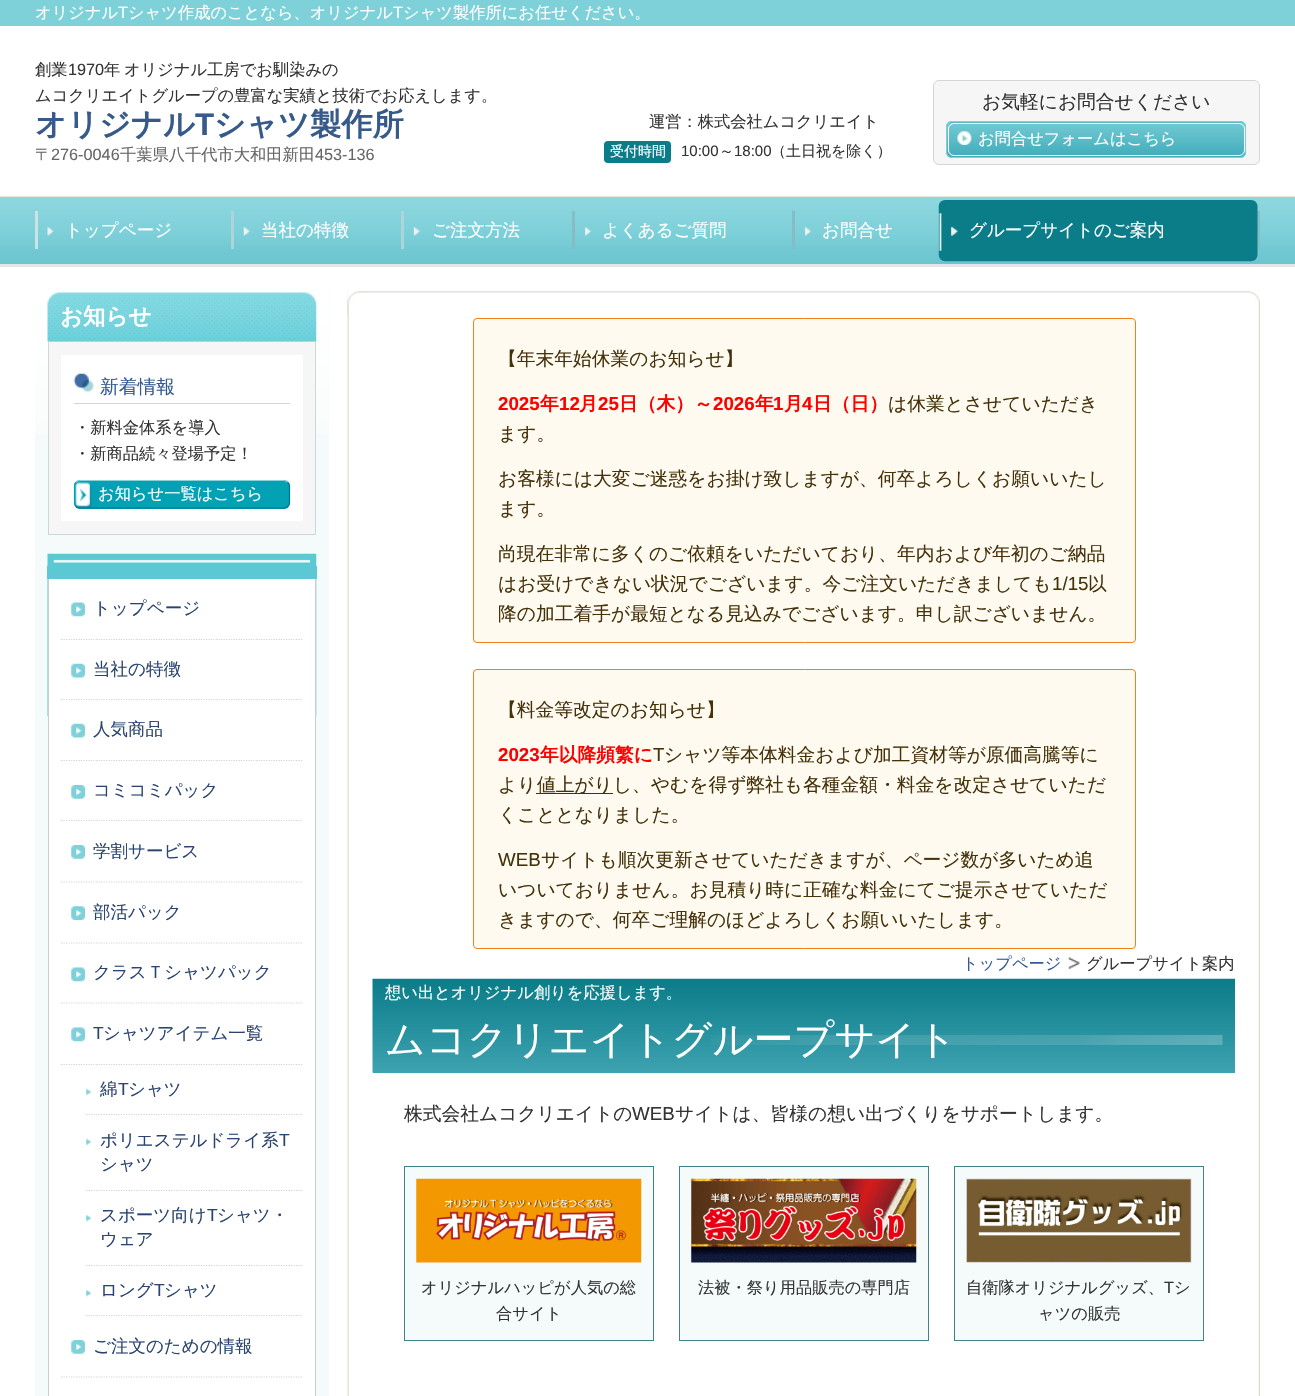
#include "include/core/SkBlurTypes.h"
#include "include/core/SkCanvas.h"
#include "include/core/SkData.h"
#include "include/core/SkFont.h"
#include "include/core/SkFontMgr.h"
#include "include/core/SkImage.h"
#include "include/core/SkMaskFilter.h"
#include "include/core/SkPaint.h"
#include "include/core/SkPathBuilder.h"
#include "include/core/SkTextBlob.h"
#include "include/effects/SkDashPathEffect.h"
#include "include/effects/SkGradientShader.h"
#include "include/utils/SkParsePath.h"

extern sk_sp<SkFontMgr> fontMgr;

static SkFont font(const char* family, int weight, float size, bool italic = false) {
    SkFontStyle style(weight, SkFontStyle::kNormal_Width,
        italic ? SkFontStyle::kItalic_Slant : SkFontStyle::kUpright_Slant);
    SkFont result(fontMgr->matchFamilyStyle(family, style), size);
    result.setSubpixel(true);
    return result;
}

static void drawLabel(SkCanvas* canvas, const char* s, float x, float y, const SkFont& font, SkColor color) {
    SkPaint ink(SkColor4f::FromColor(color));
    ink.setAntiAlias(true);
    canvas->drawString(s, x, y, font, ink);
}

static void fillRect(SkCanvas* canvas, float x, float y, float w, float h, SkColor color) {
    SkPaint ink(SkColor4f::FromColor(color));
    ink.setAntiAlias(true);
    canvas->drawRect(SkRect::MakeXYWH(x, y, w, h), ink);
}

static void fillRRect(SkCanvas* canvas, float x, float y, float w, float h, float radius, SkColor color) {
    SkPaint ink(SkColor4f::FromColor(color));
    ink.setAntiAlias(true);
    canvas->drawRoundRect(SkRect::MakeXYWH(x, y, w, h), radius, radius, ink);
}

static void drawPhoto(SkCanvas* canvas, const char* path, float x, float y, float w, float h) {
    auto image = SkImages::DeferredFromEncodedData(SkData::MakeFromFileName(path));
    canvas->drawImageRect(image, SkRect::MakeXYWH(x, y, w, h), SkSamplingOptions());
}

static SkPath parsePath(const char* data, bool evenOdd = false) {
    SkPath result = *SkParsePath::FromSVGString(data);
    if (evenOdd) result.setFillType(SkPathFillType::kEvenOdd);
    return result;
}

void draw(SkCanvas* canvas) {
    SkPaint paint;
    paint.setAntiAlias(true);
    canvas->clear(0xFFFFFFFF);
    fillRect(canvas, 0, 0, 1295, 26, 0xFF7ED1D9);
    SkFont font1 = font("WenQuanYi Zen Hei", 500, 16.25f);
    drawLabel(canvas, "オリジナル", 35, 18, font1, 0xFFFFFFFF);
    SkFont font2 = font("Liberation Sans", 400, 16.25f);
    drawLabel(canvas, "T", 118, 18, font2, 0xFFFFFFFF);
    drawLabel(canvas, "シャツ作成のことなら、オリジナル", 128, 18, font1, 0xFFFFFFFF);
    drawLabel(canvas, "T", 393, 18, font2, 0xFFFFFFFF);
    drawLabel(canvas, "シャツ製作所にお任せください。", 403, 18, font1, 0xFFFFFFFF);
    drawLabel(canvas, "創業", 35, 75, font1, 0xFF333333);
    drawLabel(canvas, "1970", 68, 75, font2, 0xFF333333);
    drawLabel(canvas, "年", 104, 75, font1, 0xFF333333);
    drawLabel(canvas, "オリジナル工房でお馴染みの", 124, 75, font1, 0xFF333333);
    drawLabel(canvas, "ムコクリエイトグループの豊富な実績と技術でお応えします。", 35, 101, font1, 0xFF333333);
    SkFont font3 = font("WenQuanYi Zen Hei", 700, 31.25f);
    drawLabel(canvas, "オリジナル", 35, 135, font3, 0xFF365A8A);
    SkFont font4 = font("Liberation Sans", 700, 31.25f);
    drawLabel(canvas, "T", 195, 135, font4, 0xFF365A8A);
    drawLabel(canvas, "シャツ製作所", 214, 135, font3, 0xFF365A8A);
    drawLabel(canvas, "〒", 35, 160, font1, 0xFF666666);
    drawLabel(canvas, "276-0046", 51, 160, font2, 0xFF666666);
    drawLabel(canvas, "千葉県八千代市大和田新田", 120, 160, font1, 0xFF666666);
    drawLabel(canvas, "453-136", 315, 160, font2, 0xFF666666);
    drawLabel(canvas, "運営：株式会社ムコクリエイト", 649, 127, font1, 0xFF333333);
    fillRRect(canvas, 604, 141, 67, 22, 4, 0xFF0B7D89);
    SkFont font5 = font("WenQuanYi Zen Hei", 500, 14);
    drawLabel(canvas, "受付時間", 610, 156, font5, 0xFFFFFFFF);
    SkFont font6 = font("Liberation Sans", 400, 15);
    drawLabel(canvas, "10:00", 681, 156, font6, 0xFF333333);
    SkFont font7 = font("WenQuanYi Zen Hei", 500, 15);
    drawLabel(canvas, "～", 719, 156, font7, 0xFF333333);
    drawLabel(canvas, "18:00", 734, 156, font6, 0xFF333333);
    drawLabel(canvas, "（土日祝を除く）", 771, 156, font7, 0xFF333333);
    paint.setColor(0xFFF6F6F6);
    canvas->drawRoundRect(SkRect::MakeXYWH(933.5f, 80.5f, 326, 84), 5.5f, 5.5f, paint);
    paint.setStroke(true);
    paint.setStrokeWidth(1);
    paint.setColor(0xFFD0D6DC);
    canvas->drawRoundRect(SkRect::MakeXYWH(933.5f, 80.5f, 326, 84), 5.5f, 5.5f, paint);
    SkFont font8 = font("WenQuanYi Zen Hei", 500, 18.75f);
    drawLabel(canvas, "お気軽にお問合せください", 982, 108, font8, 0xFF333333);
    fillRRect(canvas, 946, 121, 300, 37, 6, 0xFF48ADBB);
    drawPhoto(canvas, "assets/img1.png", 946, 122, 301, 36);
    paint.setColor(0xFF7ED1D9);
    canvas->drawRoundRect(SkRect::MakeXYWH(946.5f, 121.5f, 299, 36), 5.5f, 5.5f, paint);
    drawPhoto(canvas, "assets/img2.png", 957, 131, 15, 14);
    paint.setColor(0xFFFFFFFF);
    canvas->drawRoundRect(SkRect::MakeXYWH(948.5f, 123.5f, 296, 32), 5.5f, 5.5f, paint);
    drawLabel(canvas, "お問合せフォームはこちら", 978, 144, font1, 0xFFFFFFFF);
    drawPhoto(canvas, "assets/img3.png", 0, 197, 1295, 67);
    fillRect(canvas, 0, 196, 1295, 1, 0xFFE9E7DD);
    fillRect(canvas, 0, 264, 1295, 3, 0xFFE5E5E5);
    fillRect(canvas, 1257, 211, 3, 38, 0xFF86BDC4);
    fillRect(canvas, 35, 211, 3, 38, 0xFFCCE3E6);
    drawPhoto(canvas, "assets/img4.png", 47, 226, 7, 10);
    SkFont font9 = font("WenQuanYi Zen Hei", 500, 17.5f);
    drawLabel(canvas, "トップページ", 65, 236, font9, 0xFFFFFFFF);
    fillRect(canvas, 231, 211, 3, 38, 0xFFAED3D8);
    drawPhoto(canvas, "assets/img5.png", 243, 226, 8, 10);
    drawLabel(canvas, "当社の特徴", 261, 236, font9, 0xFFFFFFFF);
    fillRect(canvas, 401, 211, 3, 38, 0xFFAED3D8);
    drawPhoto(canvas, "assets/img6.png", 413, 226, 8, 10);
    drawLabel(canvas, "ご注文方法", 432, 236, font9, 0xFFFFFFFF);
    fillRect(canvas, 572, 211, 3, 38, 0xFF86BDC4);
    drawPhoto(canvas, "assets/img7.png", 584, 226, 8, 10);
    drawLabel(canvas, "よくあるご質問", 602, 236, font9, 0xFFFFFFFF);
    fillRect(canvas, 792, 211, 3, 38, 0xFF86BDC4);
    drawPhoto(canvas, "assets/img8.png", 804, 226, 8, 10);
    drawLabel(canvas, "お問合せ", 822, 236, font9, 0xFFFFFFFF);
    drawPhoto(canvas, "assets/img9.png", 938, 200, 320, 62);
    drawPhoto(canvas, "assets/img10.png", 951, 226, 7, 10);
    drawLabel(canvas, "グループサイトのご案内", 969, 236, font9, 0xFFFFFFFF);
    drawPhoto(canvas, "assets/img11.png", 35, 291, 1225, 1105);
    drawPhoto(canvas, "assets/img12.png", 35, 291, 294, 143);
    paint.setStroke(false);
    paint.setColor(0xFFF6F6F6);
    canvas->drawRect(SkRect::MakeXYWH(48.5f, 341.5f, 267, 193), paint);
    paint.setStroke(true);
    paint.setColor(0xFFCBD8D9);
    canvas->drawRect(SkRect::MakeXYWH(48.5f, 341.5f, 267, 193), paint);
    drawPhoto(canvas, "assets/img13.png", 47, 292, 270, 50);
    SkFont font10 = font("WenQuanYi Zen Hei", 700, 22.5f);
    drawLabel(canvas, "お知らせ", 60, 324, font10, 0xFFFFFFFF);
    fillRect(canvas, 61, 355, 242, 166, 0xFFFFFFFF);
    fillRect(canvas, 74, 403, 216, 1, 0xFFCBD8D9);
    drawPhoto(canvas, "assets/img14.png", 73, 373, 21, 20);
    drawLabel(canvas, "新着情報", 100, 393, font8, 0xFF335A93);
    drawLabel(canvas, "・新料金体系を導入", 74, 433, font1, 0xFF333333);
    drawLabel(canvas, "・新商品続々登場予定！", 74, 459, font1, 0xFF333333);
    fillRRect(canvas, 74, 480, 216, 29, 6, 0xFF02A1B4);
    paint.setStrokeWidth(1.2f);
    paint.setColor(0xFF87D2DB);
    canvas->drawPath(parsePath("M76 482.5C77 481 78.5 480.5 80 480.5H284C285 480.5 286.5 481 287.5 482.5"), paint);
    paint.setColor(0xFF01758C);
    canvas->drawPath(parsePath("M287.5 482.5C289 483.5 289.5 485 289.5 486V502.5C289.5 504 289 505.5 287.5 506.5C286.5 507.5 285 508 284 508H80C78.5 508 77 507.5 76 506.5"), paint);
    paint.setColor(0xFF02A1B4);
    canvas->drawPath(parsePath("M76 506.5C75 505.5 74.5 504 74.5 502.5V486C74.5 485 75 483.5 76 482.5"), paint);
    drawPhoto(canvas, "assets/img15.png", 75, 482, 17, 26);
    drawLabel(canvas, "お知らせ一覧はこちら", 98, 499, font1, 0xFFFFFFFF);
    drawPhoto(canvas, "assets/img16.png", 47, 553, 270, 164);
    fillRect(canvas, 47, 566, 270, 13, 0xFF5BC8D3);
    fillRect(canvas, 49, 579, 266, 817, 0xFFFFFFFF);
    fillRect(canvas, 315, 579, 1, 817, 0xFFCCCCCC);
    fillRect(canvas, 48, 579, 1, 817, 0xFFCCCCCC);
    drawPhoto(canvas, "assets/img17.png", 71, 602, 14, 15);
    paint.setColor(0xFFCBD8D9);
    paint.setPathEffect(SkDashPathEffect::Make({{1.25f, 1.25f}}, 0));
    canvas->drawPath(parsePath("M61 639.5H302.5"), paint);
    paint.setPathEffect(nullptr);
    drawLabel(canvas, "トップページ", 93, 614, font9, 0xFF294470);
    fillRect(canvas, 61, 640, 241, 1, 0xFFFFFFFF);
    drawPhoto(canvas, "assets/img18.png", 71, 663, 14, 15);
    paint.setPathEffect(SkDashPathEffect::Make({{1.25f, 1.25f}}, 0));
    canvas->drawPath(parsePath("M61 699.5H302.5"), paint);
    paint.setPathEffect(nullptr);
    drawLabel(canvas, "当社の特徴", 93, 675, font9, 0xFF294470);
    fillRect(canvas, 61, 700, 241, 1, 0xFFFFFFFF);
    drawPhoto(canvas, "assets/img18.png", 71, 723, 14, 15);
    paint.setPathEffect(SkDashPathEffect::Make({{1.25f, 1.25f}}, 0));
    canvas->drawPath(parsePath("M61 760.5H302.5"), paint);
    paint.setPathEffect(nullptr);
    drawLabel(canvas, "人気商品", 93, 735, font9, 0xFF294470);
    fillRect(canvas, 61, 761, 241, 1, 0xFFFFFFFF);
    drawPhoto(canvas, "assets/img19.png", 71, 785, 14, 14);
    paint.setPathEffect(SkDashPathEffect::Make({{1.25f, 1.25f}}, 0));
    canvas->drawPath(parsePath("M61 820.5H302.5"), paint);
    paint.setPathEffect(nullptr);
    drawLabel(canvas, "コミコミパック", 93, 796, font9, 0xFF294470);
    fillRect(canvas, 61, 821, 241, 1, 0xFFFFFFFF);
    drawPhoto(canvas, "assets/img19.png", 71, 845, 14, 14);
    paint.setPathEffect(SkDashPathEffect::Make({{1.25f, 1.25f}}, 0));
    canvas->drawPath(parsePath("M61 882H302.5"), paint);
    paint.setPathEffect(nullptr);
    drawLabel(canvas, "学割サービス", 93, 857, font9, 0xFF294470);
    drawPhoto(canvas, "assets/img20.png", 71, 906, 14, 14);
    paint.setPathEffect(SkDashPathEffect::Make({{1.25f, 1.25f}}, 0));
    canvas->drawPath(parsePath("M61 943H302.5"), paint);
    paint.setPathEffect(nullptr);
    drawLabel(canvas, "部活パック", 93, 918, font9, 0xFF294470);
    drawPhoto(canvas, "assets/img17.png", 71, 967, 14, 15);
    paint.setPathEffect(SkDashPathEffect::Make({{1.25f, 1.25f}}, 0));
    canvas->drawPath(parsePath("M61 1003H302.5"), paint);
    paint.setPathEffect(nullptr);
    drawLabel(canvas, "クラスＴシャツパック", 93, 978, font9, 0xFF294470);
    drawPhoto(canvas, "assets/img17.png", 71, 1027, 14, 15);
    paint.setPathEffect(SkDashPathEffect::Make({{1.25f, 1.25f}}, 0));
    canvas->drawPath(parsePath("M61 1064.5H302.5"), paint);
    paint.setPathEffect(nullptr);
    SkFont font11 = font("Liberation Sans", 400, 17.5f);
    drawLabel(canvas, "T", 93, 1039, font11, 0xFF294470);
    drawLabel(canvas, "シャツアイテム一覧", 103, 1039, font9, 0xFF294470);
    drawPhoto(canvas, "assets/img21.png", 86, 1088, 6, 8);
    paint.setPathEffect(SkDashPathEffect::Make({{1.25f, 1.25f}}, 0));
    canvas->drawPath(parsePath("M86 1114.5H302.5"), paint);
    paint.setPathEffect(nullptr);
    drawLabel(canvas, "綿", 100, 1095, font9, 0xFF294470);
    drawLabel(canvas, "T", 118, 1095, font11, 0xFF294470);
    drawLabel(canvas, "シャツ", 128, 1095, font9, 0xFF294470);
    drawPhoto(canvas, "assets/img21.png", 86, 1138, 6, 8);
    paint.setPathEffect(SkDashPathEffect::Make({{1.25f, 1.25f}}, 0));
    canvas->drawPath(parsePath("M86 1190.5H302.5"), paint);
    paint.setPathEffect(nullptr);
    drawLabel(canvas, "ポリエステルドライ系", 100, 1146, font9, 0xFF294470);
    drawLabel(canvas, "T", 279, 1146, font11, 0xFF294470);
    drawLabel(canvas, "シャツ", 100, 1170, font9, 0xFF294470);
    drawPhoto(canvas, "assets/img22.png", 86, 1214, 6, 8);
    paint.setPathEffect(SkDashPathEffect::Make({{1.25f, 1.25f}}, 0));
    canvas->drawPath(parsePath("M86 1265.5H302.5"), paint);
    paint.setPathEffect(nullptr);
    drawLabel(canvas, "スポーツ向け", 100, 1221, font9, 0xFF294470);
    drawLabel(canvas, "T", 207, 1221, font11, 0xFF294470);
    drawLabel(canvas, "シャツ・", 217, 1221, font9, 0xFF294470);
    drawLabel(canvas, "ウェア", 100, 1245, font9, 0xFF294470);
    drawPhoto(canvas, "assets/img22.png", 86, 1289, 6, 8);
    paint.setPathEffect(SkDashPathEffect::Make({{1.25f, 1.25f}}, 0));
    canvas->drawPath(parsePath("M86 1315.5H302.5"), paint);
    paint.setPathEffect(nullptr);
    drawLabel(canvas, "ロング", 100, 1296, font9, 0xFF294470);
    drawLabel(canvas, "T", 154, 1296, font11, 0xFF294470);
    drawLabel(canvas, "シャツ", 164, 1296, font9, 0xFF294470);
    fillRect(canvas, 86, 1316, 216, 1, 0xFFFFFFFF);
    drawPhoto(canvas, "assets/img19.png", 71, 1340, 14, 14);
    paint.setPathEffect(SkDashPathEffect::Make({{1.25f, 1.25f}}, 0));
    canvas->drawPath(parsePath("M61 1377H302.5"), paint);
    paint.setPathEffect(nullptr);
    drawLabel(canvas, "ご注文のための情報", 93, 1352, font9, 0xFF294470);
    drawPhoto(canvas, "assets/img23.png", 347, 291, 913, 25);
    paint.setStroke(false);
    paint.setColor(0xFFFEFAF0);
    canvas->drawRoundRect(SkRect::MakeXYWH(473.5f, 318.5f, 662, 324), 3.5f, 3.5f, paint);
    paint.setStroke(true);
    paint.setStrokeWidth(1);
    paint.setColor(0xFFF37F1C);
    canvas->drawRoundRect(SkRect::MakeXYWH(473.5f, 318.5f, 662, 324), 3.5f, 3.5f, paint);
    drawLabel(canvas, "【年末年始休業のお知らせ】", 498, 365, font8, 0xFF45320B);
    SkFont font12 = font("Liberation Sans", 700, 18.75f);
    drawLabel(canvas, "2025", 498, 410, font12, 0xFFFF0000);
    SkFont font13 = font("WenQuanYi Zen Hei", 700, 18.75f);
    drawLabel(canvas, "年", 540, 410, font13, 0xFFFF0000);
    drawLabel(canvas, "12", 559, 410, font12, 0xFFFF0000);
    drawLabel(canvas, "月", 579, 410, font13, 0xFFFF0000);
    drawLabel(canvas, "25", 598, 410, font12, 0xFFFF0000);
    drawLabel(canvas, "日（木）～", 619, 410, font13, 0xFFFF0000);
    drawLabel(canvas, "2026", 713, 410, font12, 0xFFFF0000);
    drawLabel(canvas, "年", 755, 410, font13, 0xFFFF0000);
    drawLabel(canvas, "1", 773, 410, font12, 0xFFFF0000);
    drawLabel(canvas, "月", 784, 410, font13, 0xFFFF0000);
    drawLabel(canvas, "4", 802, 410, font12, 0xFFFF0000);
    drawLabel(canvas, "日（日）", 813, 410, font13, 0xFFFF0000);
    drawLabel(canvas, "は休業とさせていただき", 888, 410, font8, 0xFF45320B);
    drawLabel(canvas, "ます。", 498, 440, font8, 0xFF45320B);
    drawLabel(canvas, "お客様には大変ご迷惑をお掛け致しますが、何卒よろしくお願いいたし", 498, 485, font8, 0xFF45320B);
    drawLabel(canvas, "ます。", 498, 515, font8, 0xFF45320B);
    drawLabel(canvas, "尚現在非常に多くのご依頼をいただいており、年内および年初のご納品", 498, 560, font8, 0xFF45320B);
    drawLabel(canvas, "はお受けできない状況でございます。今ご注文いただきましても", 498, 590, font8, 0xFF45320B);
    SkFont font14 = font("Liberation Sans", 400, 18.75f);
    drawLabel(canvas, "1/15", 1052, 590, font14, 0xFF45320B);
    drawLabel(canvas, "以", 1088, 590, font8, 0xFF45320B);
    drawLabel(canvas, "降の加工着手が最短となる見込みでございます。申し訳ございません。", 498, 620, font8, 0xFF45320B);
    paint.setStroke(false);
    paint.setColor(0xFFFEFAF0);
    canvas->drawRoundRect(SkRect::MakeXYWH(473.5f, 669.5f, 662, 279), 3.5f, 3.5f, paint);
    paint.setStroke(true);
    paint.setColor(0xFFF37F1C);
    canvas->drawRoundRect(SkRect::MakeXYWH(473.5f, 669.5f, 662, 279), 3.5f, 3.5f, paint);
    drawLabel(canvas, "【料金等改定のお知らせ】", 498, 716, font8, 0xFF45320B);
    drawLabel(canvas, "2023", 498, 761, font12, 0xFFFF0000);
    drawLabel(canvas, "年以降頻繁に", 540, 761, font13, 0xFFFF0000);
    drawLabel(canvas, "T", 653, 761, font14, 0xFF45320B);
    drawLabel(canvas, "シャツ等本体料金および加工資材等が原価高騰等に", 664, 761, font8, 0xFF45320B);
    drawLabel(canvas, "より", 498, 791, font8, 0xFF45320B);
    fillRect(canvas, 536, 793, 77, 1, 0xFF45320B);
    drawLabel(canvas, "値上がりし、やむを得ず弊社も各種金額・料金を改定させていただ", 537, 791, font8, 0xFF45320B);
    drawLabel(canvas, "くこととなりました。", 498, 821, font8, 0xFF45320B);
    drawLabel(canvas, "WEB", 498, 866, font14, 0xFF45320B);
    drawLabel(canvas, "サイトも順次更新させていただきますが、ページ数が多いため追", 541, 866, font8, 0xFF45320B);
    drawLabel(canvas, "いついておりません。お見積り時に正確な料金にてご提示させていただ", 498, 896, font8, 0xFF45320B);
    drawLabel(canvas, "きますので、何卒ご理解のほどよろしくお願いいたします。", 498, 926, font8, 0xFF45320B);
    drawLabel(canvas, "トップページ", 962, 969, font1, 0xFF335A93);
    drawPhoto(canvas, "assets/img24.png", 1068, 957, 12, 12);
    drawLabel(canvas, "グループサイト案内", 1086, 969, font1, 0xFF333333);
    fillRect(canvas, 373, 1072, 862, 1, 0xFF3EA2B1);
    drawPhoto(canvas, "assets/img25.png", 372, 978, 863, 95);
    drawLabel(canvas, "想い出とオリジナル創りを応援します。", 385, 998, font1, 0xFFFFFFFF);
    drawPhoto(canvas, "assets/img26.png", 711, 1035, 512, 10);
    SkFont font15 = font("WenQuanYi Zen Hei", 500, 40);
    drawLabel(canvas, "ムコクリエイトグループサイト", 385, 1053, font15, 0xFFFFFFFF);
    drawLabel(canvas, "株式会社ムコクリエイトの", 404, 1120, font8, 0xFF333333);
    drawLabel(canvas, "WEB", 632, 1120, font14, 0xFF333333);
    drawLabel(canvas, "サイトは、皆様の想い出づくりをサポートします。", 675, 1120, font8, 0xFF333333);
    paint.setStroke(false);
    paint.setColor(0xFFF5FAFA);
    canvas->drawRect(SkRect::MakeXYWH(404.5f, 1166.5f, 249, 174), paint);
    paint.setStroke(true);
    paint.setColor(0xFF418189);
    canvas->drawRect(SkRect::MakeXYWH(404.5f, 1166.5f, 249, 174), paint);
    drawPhoto(canvas, "assets/img27.png", 416, 1178, 226, 85);
    drawLabel(canvas, "オリジナルハッピが人気の総", 421, 1293, font1, 0xFF333333);
    drawLabel(canvas, "合サイト", 496, 1319, font1, 0xFF333333);
    paint.setStroke(false);
    paint.setColor(0xFFF5FAFA);
    canvas->drawRect(SkRect::MakeXYWH(679.5f, 1166.5f, 249, 174), paint);
    paint.setStroke(true);
    paint.setColor(0xFF418189);
    canvas->drawRect(SkRect::MakeXYWH(679.5f, 1166.5f, 249, 174), paint);
    drawPhoto(canvas, "assets/img28.png", 691, 1178, 226, 85);
    drawLabel(canvas, "法被・祭り用品販売の専門店", 698, 1293, font1, 0xFF333333);
    paint.setStroke(false);
    paint.setColor(0xFFF5FAFA);
    canvas->drawRect(SkRect::MakeXYWH(954.5f, 1166.5f, 249, 174), paint);
    paint.setStroke(true);
    paint.setColor(0xFF418189);
    canvas->drawRect(SkRect::MakeXYWH(954.5f, 1166.5f, 249, 174), paint);
    drawPhoto(canvas, "assets/img29.png", 966, 1178, 226, 85);
    drawLabel(canvas, "自衛隊オリジナルグッズ、", 966, 1293, font1, 0xFF333333);
    drawLabel(canvas, "T", 1164, 1293, font2, 0xFF333333);
    drawLabel(canvas, "シ", 1174, 1293, font1, 0xFF333333);
    drawLabel(canvas, "ャツの販売", 1038, 1319, font1, 0xFF333333);
}
